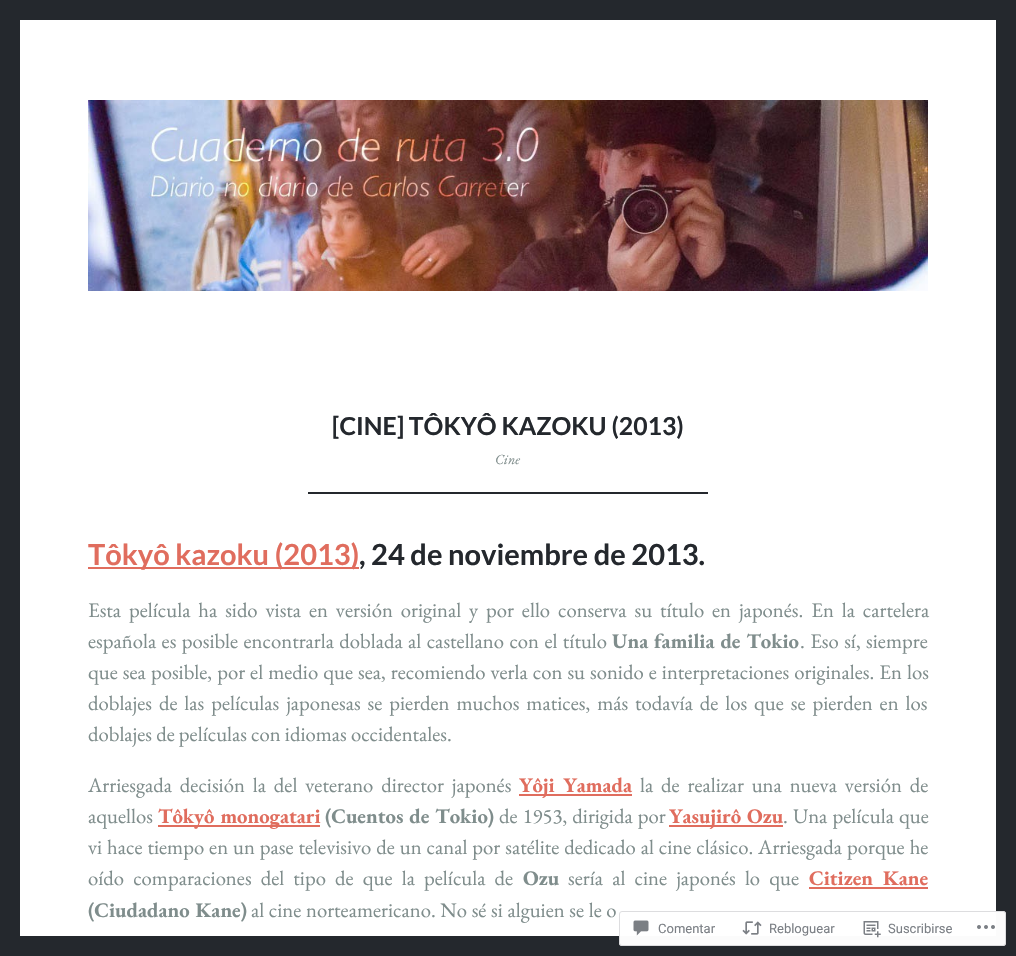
#include "include/core/SkBlurTypes.h"
#include "include/core/SkCanvas.h"
#include "include/core/SkData.h"
#include "include/core/SkFont.h"
#include "include/core/SkFontMgr.h"
#include "include/core/SkImage.h"
#include "include/core/SkMaskFilter.h"
#include "include/core/SkPaint.h"
#include "include/core/SkPathBuilder.h"
#include "include/core/SkTextBlob.h"
#include "include/effects/SkDashPathEffect.h"
#include "include/effects/SkGradientShader.h"
#include "include/utils/SkParsePath.h"

extern sk_sp<SkFontMgr> fontMgr;

static SkFont font(const char* family, int weight, float size, bool italic = false) {
    SkFontStyle style(weight, SkFontStyle::kNormal_Width,
        italic ? SkFontStyle::kItalic_Slant : SkFontStyle::kUpright_Slant);
    SkFont result(fontMgr->matchFamilyStyle(family, style), size);
    result.setSubpixel(true);
    return result;
}

static void drawLabel(SkCanvas* canvas, const char* s, float x, float y, const SkFont& font, SkColor color) {
    SkPaint ink(SkColor4f::FromColor(color));
    ink.setAntiAlias(true);
    canvas->drawString(s, x, y, font, ink);
}

static void drawTracked(SkCanvas* canvas, const char* s, float x, float y, const SkFont& font, const SkPaint& ink, float letter, float word) {
    std::vector<SkGlyphID> glyphs(font.countText(s, strlen(s), SkTextEncoding::kUTF8));
    std::vector<float> xs(glyphs.size());
    font.textToGlyphs(s, strlen(s), SkTextEncoding::kUTF8, glyphs);
    font.getXPos(glyphs, xs, x);
    float extra = 0;
    for (size_t i = 0; i < glyphs.size(); i++) {
        xs[i] += extra;
        extra += letter + word * (glyphs[i] == font.unicharToGlyph(' '));
    }
    canvas->drawTextBlob(SkTextBlob::MakeFromPosHGlyphs(glyphs, xs, y, font), 0, 0, ink);
}

static void fillRect(SkCanvas* canvas, float x, float y, float w, float h, SkColor color) {
    SkPaint ink(SkColor4f::FromColor(color));
    ink.setAntiAlias(true);
    canvas->drawRect(SkRect::MakeXYWH(x, y, w, h), ink);
}

static void fillRRect(SkCanvas* canvas, float x, float y, float w, float h, float radius, SkColor color) {
    SkPaint ink(SkColor4f::FromColor(color));
    ink.setAntiAlias(true);
    canvas->drawRoundRect(SkRect::MakeXYWH(x, y, w, h), radius, radius, ink);
}

static void drawPhoto(SkCanvas* canvas, const char* path, float x, float y, float w, float h) {
    auto image = SkImages::DeferredFromEncodedData(SkData::MakeFromFileName(path));
    canvas->drawImageRect(image, SkRect::MakeXYWH(x, y, w, h), SkSamplingOptions());
}

void draw(SkCanvas* canvas) {
    SkPaint paint;
    paint.setAntiAlias(true);
    canvas->clear(0xFF24282D);
    fillRect(canvas, 20, 20, 976, 916, 0xFFFFFFFF);
    drawPhoto(canvas, "assets/img1.png", 88, 100, 840, 191);
    SkFont font1 = font("Lato", 700, 24.75f);
    drawLabel(canvas, "[CINE] TÔKYÔ KAZOKU (2013)", 332, 435, font1, 0xFF24282D);
    SkFont font2 = font("EB Garamond", 400, 14, true);
    drawLabel(canvas, "Cine", 495, 464, font2, 0xFF7F8D8C);
    fillRect(canvas, 308, 492, 400, 2, 0xFF24282D);
    fillRect(canvas, 88, 567, 271, 2, 0xFFE06D5E);
    SkFont font3 = font("Lato", 700, 29);
    drawLabel(canvas, "Tôkyô kazoku (2013)", 88, 565, font3, 0xFFE06D5E);
    drawLabel(canvas, ", 24 de noviembre de 2013.", 359, 565, font3, 0xFF24282D);
    SkFont font4 = font("EB Garamond", 400, 20.7f);
    paint.setColor(0xFF7F8D8C);
    drawTracked(canvas, "Esta película ha sido vista en versión original y por ello conserva su título en japonés. En la cartelera", 88, 617, font4, paint, 0, 3.75f);
    drawTracked(canvas, "española es posible encontrarla doblada al castellano con el título", 88, 648, font4, paint, 0, 1.25f);
    SkFont font5 = font("EB Garamond", 700, 20.7f);
    drawTracked(canvas, "Una familia de Tokio", 612, 648, font5, paint, 0, 1);
    drawTracked(canvas, ". Eso sí, siempre", 800, 648, font4, paint, 0, 1.25f);
    drawTracked(canvas, "que sea posible, por el medio que sea, recomiendo verla con su sonido e interpretaciones originales. En los", 88, 679, font4, paint, 0, 0.9f);
    drawTracked(canvas, "doblajes de las películas japonesas se pierden muchos matices, más todavía de los que se pierden en los", 88, 710, font4, paint, 0, 2.75f);
    drawLabel(canvas, "doblajes de películas con idiomas occidentales.", 88, 741, font4, 0xFF7F8D8C);
    drawTracked(canvas, "Arriesgada decisión la del veterano director japonés", 88, 792, font4, paint, 0, 3.75f);
    fillRect(canvas, 519, 794, 113, 2, 0xFFE06D5E);
    paint.setColor(0xFFE06D5E);
    drawTracked(canvas, "Yôji Yamada", 519, 792, font5, paint, 0, 3.75f);
    paint.setColor(0xFF7F8D8C);
    drawTracked(canvas, "la de realizar una nueva versión de", 640, 792, font4, paint, 0, 3.75f);
    drawLabel(canvas, "aquellos", 88, 823, font4, 0xFF7F8D8C);
    fillRect(canvas, 158, 825, 162, 2, 0xFFE06D5E);
    paint.setColor(0xFFE06D5E);
    drawTracked(canvas, "Tôkyô monogatari", 158, 823, font5, paint, 0, 1);
    paint.setColor(0xFF7F8D8C);
    drawTracked(canvas, "(Cuentos de Tokio)", 325, 823, font5, paint, 0, 1);
    drawTracked(canvas, "de 1953, dirigida por", 499, 823, font4, paint, 0, 1);
    fillRect(canvas, 669, 825, 114, 2, 0xFFE06D5E);
    paint.setColor(0xFFE06D5E);
    drawTracked(canvas, "Yasujirô Ozu", 669, 823, font5, paint, 0, 1);
    paint.setColor(0xFF7F8D8C);
    drawTracked(canvas, ". Una película que", 783, 823, font4, paint, 0, 1);
    drawTracked(canvas, "vi hace tiempo en un pase televisivo de un canal por satélite dedicado al cine clásico. Arriesgada porque he", 88, 854, font4, paint, 0, 0.8f);
    drawTracked(canvas, "oído comparaciones del tipo de que la película de", 88, 885, font4, paint, 0, 5);
    drawLabel(canvas, "Ozu", 523, 885, font5, 0xFF7F8D8C);
    drawTracked(canvas, "sería al cine japonés lo que", 568, 885, font4, paint, 0, 5);
    paint.setColor(0xFFE06D5E);
    drawTracked(canvas, "Citizen Kane", 809, 885, font5, paint, 0, 5);
    fillRect(canvas, 809, 887, 119, 2, 0xFFE06D5E);
    paint.setColor(0xFF7F8D8C);
    drawTracked(canvas, "(Ciudadano Kane)", 88, 917, font5, paint, 0, 1);
    drawTracked(canvas, "al cine norteamericano. No sé si alguien se le o", 251, 917, font4, paint, 0, 0.5f);
    fillRRect(canvas, 619, 911, 387, 35, 3, 0xFAFFFFFF);
    paint.setStroke(true);
    paint.setStrokeWidth(1);
    paint.setColor(0xFADCDCDE);
    canvas->drawRoundRect(SkRect::MakeXYWH(619.5f, 911.5f, 386, 34), 2.5f, 2.5f, paint);
    drawPhoto(canvas, "assets/img2.png", 633, 920, 16, 16);
    SkFont font6 = font("Roboto", 400, 13);
    drawLabel(canvas, "Comentar", 658, 933, font6, 0xFF7B7F85);
    drawPhoto(canvas, "assets/img3.png", 742, 921, 20, 14);
    drawLabel(canvas, "Rebloguear", 769, 933, font6, 0xFF7B7F85);
    drawPhoto(canvas, "assets/img4.png", 863, 921, 18, 17);
    drawLabel(canvas, "Suscribirse", 888, 933, font6, 0xFF7B7F85);
    drawPhoto(canvas, "assets/img5.png", 977, 925, 18, 4);
}
